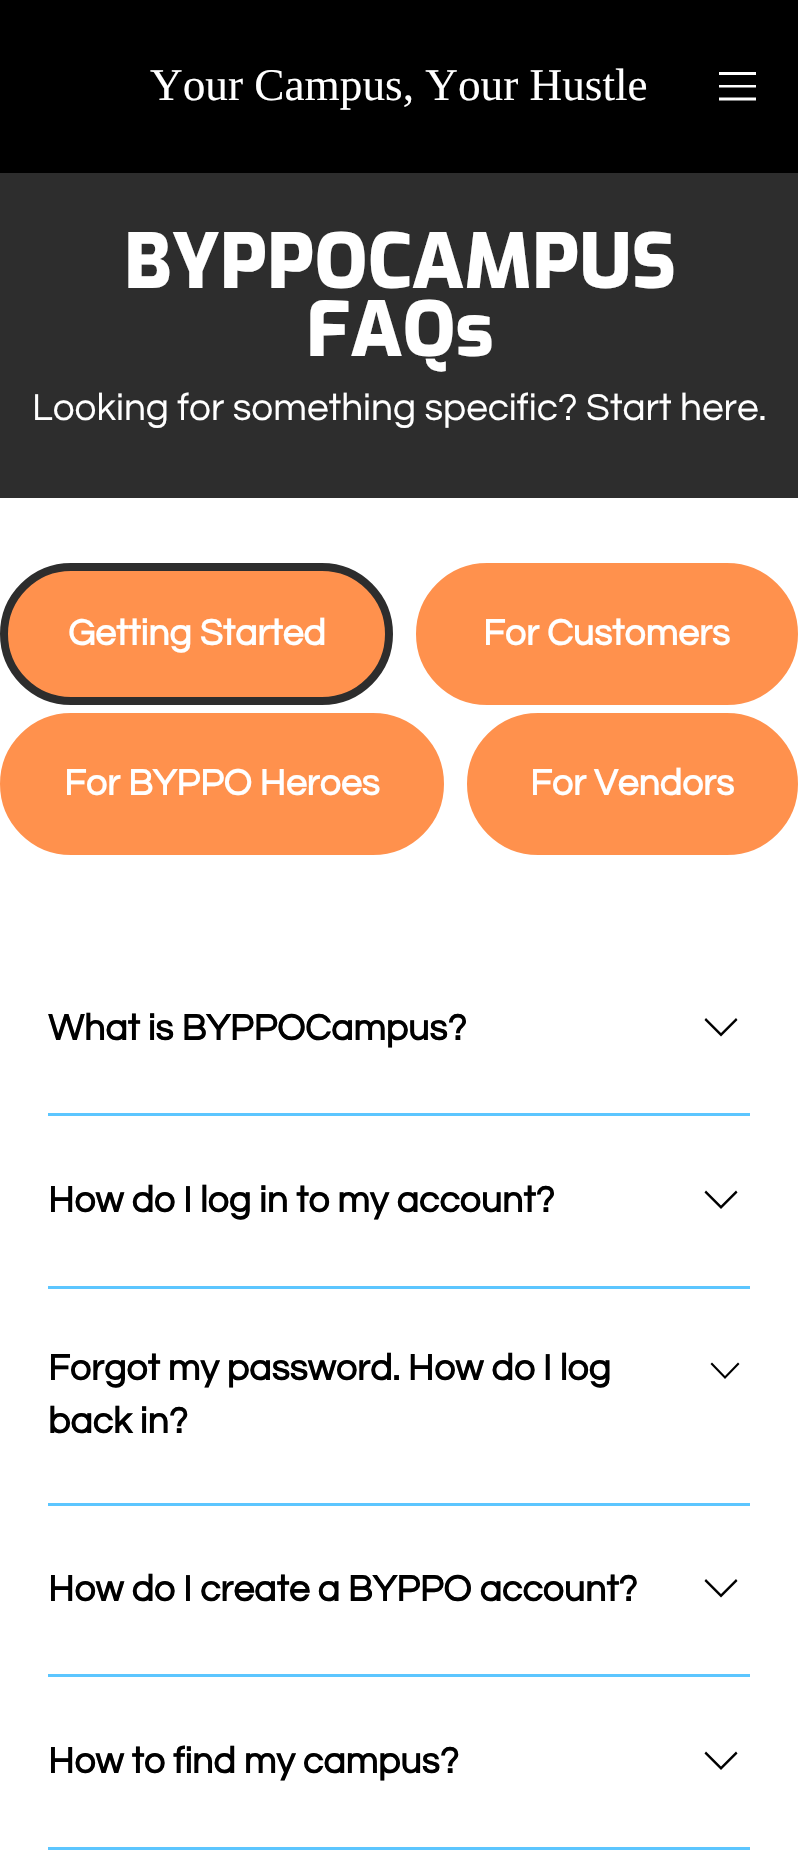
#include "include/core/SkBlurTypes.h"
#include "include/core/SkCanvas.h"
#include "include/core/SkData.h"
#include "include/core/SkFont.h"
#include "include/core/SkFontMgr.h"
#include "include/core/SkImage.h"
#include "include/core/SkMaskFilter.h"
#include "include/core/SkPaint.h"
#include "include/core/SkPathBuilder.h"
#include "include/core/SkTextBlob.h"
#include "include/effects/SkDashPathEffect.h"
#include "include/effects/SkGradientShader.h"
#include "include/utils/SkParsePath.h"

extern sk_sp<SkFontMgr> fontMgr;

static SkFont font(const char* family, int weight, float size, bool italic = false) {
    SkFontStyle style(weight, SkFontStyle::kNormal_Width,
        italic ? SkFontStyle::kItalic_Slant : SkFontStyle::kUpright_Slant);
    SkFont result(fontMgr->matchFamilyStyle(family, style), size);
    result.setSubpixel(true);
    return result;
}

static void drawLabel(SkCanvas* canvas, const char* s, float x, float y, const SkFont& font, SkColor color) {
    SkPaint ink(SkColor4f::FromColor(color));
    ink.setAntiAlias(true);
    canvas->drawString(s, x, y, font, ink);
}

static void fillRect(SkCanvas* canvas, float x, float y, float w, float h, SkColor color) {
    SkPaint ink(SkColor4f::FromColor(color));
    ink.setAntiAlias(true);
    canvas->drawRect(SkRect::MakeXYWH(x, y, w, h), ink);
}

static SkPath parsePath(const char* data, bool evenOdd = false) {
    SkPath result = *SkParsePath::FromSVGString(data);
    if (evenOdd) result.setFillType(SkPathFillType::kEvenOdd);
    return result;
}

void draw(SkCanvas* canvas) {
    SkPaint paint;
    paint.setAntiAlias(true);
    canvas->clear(0xFFFFFFFF);
    fillRect(canvas, 0, 0, 798, 173, 0xFF000000);
    SkFont font1 = font("Liberation Serif", 400, 45.25f);
    drawLabel(canvas, "Your Campus, Your Hustle", 150, 100, font1, 0xFFFFFFFF);
    canvas->save();
    canvas->clipRect(SkRect::MakeXYWH(719, 68, 37, 37));
    paint.setColor(0xFFFFFFFF);
    canvas->drawPath(parsePath("M756 75H718.5V72H756ZM756 87.5H718.5V85H756ZM756 100.5H718.5V97.5H756Z", true), paint);
    canvas->restore();
    fillRect(canvas, 0, 173, 798, 325, 0xFF2D2D2D);
    SkFont font2 = font("Exo", 800, 75.5f);
    drawLabel(canvas, "BYPPOCAMPUS", 124, 288, font2, 0xFFFFFFFF);
    drawLabel(canvas, "FAQs", 306, 356, font2, 0xFFFFFFFF);
    SkFont font3 = font("Questrial", 400, 38.8f);
    drawLabel(canvas, "Looking for something specific? Start here.", 32, 420, font3, 0xFFFFFFFF);
    paint.setColor(0xFFFF914D);
    canvas->drawRoundRect(SkRect::MakeXYWH(4, 567, 385, 134), 67, 67, paint);
    paint.setStroke(true);
    paint.setStrokeWidth(8);
    paint.setColor(0xFF2D2D2D);
    canvas->drawRoundRect(SkRect::MakeXYWH(4, 567, 385, 134), 67, 67, paint);
    SkFont font4 = font("Questrial", 700, 37.5f);
    drawLabel(canvas, "Getting Started", 68, 645, font4, 0xFFFFFFFF);
    paint.setStroke(false);
    paint.setColor(0xFFFF914D);
    canvas->drawRoundRect(SkRect::MakeXYWH(420, 567, 374, 134), 67, 67, paint);
    paint.setStroke(true);
    canvas->drawRoundRect(SkRect::MakeXYWH(420, 567, 374, 134), 67, 67, paint);
    drawLabel(canvas, "For Customers", 483, 645, font4, 0xFFFFFFFF);
    paint.setStroke(false);
    canvas->drawRoundRect(SkRect::MakeXYWH(4, 717, 436, 134), 67, 67, paint);
    paint.setStroke(true);
    canvas->drawRoundRect(SkRect::MakeXYWH(4, 717, 436, 134), 67, 67, paint);
    drawLabel(canvas, "For BYPPO Heroes", 64, 795, font4, 0xFFFFFFFF);
    paint.setStroke(false);
    canvas->drawRoundRect(SkRect::MakeXYWH(471, 717, 323, 134), 67, 67, paint);
    paint.setStroke(true);
    canvas->drawRoundRect(SkRect::MakeXYWH(471, 717, 323, 134), 67, 67, paint);
    drawLabel(canvas, "For Vendors", 530, 795, font4, 0xFFFFFFFF);
    drawLabel(canvas, "What is BYPPOCampus?", 48, 1040, font4, 0xFF000000);
    paint.setStroke(false);
    paint.setColor(0xFF000000);
    canvas->drawPath(parsePath("M736 1018L737.5 1020L721 1036.5L704.5 1020L706 1018L721 1033Z", true), paint);
    fillRect(canvas, 48, 1113, 702, 3, 0xFF5CC6FF);
    drawLabel(canvas, "How do I log in to my account?", 48, 1212, font4, 0xFF000000);
    canvas->drawPath(parsePath("M736 1190.5L737.5 1192.5L721 1209L704.5 1192.5L706 1190.5L721 1205.5Z", true), paint);
    fillRect(canvas, 48, 1286, 702, 3, 0xFF5CC6FF);
    drawLabel(canvas, "Forgot my password. How do I log", 48, 1380, font4, 0xFF000000);
    drawLabel(canvas, "back in?", 48, 1433, font4, 0xFF000000);
    canvas->drawPath(parsePath("M738 1362.5L739.5 1364L725 1379L710.5 1364L712 1362.5L725 1376Z", true), paint);
    fillRect(canvas, 48, 1503, 702, 3, 0xFF5CC6FF);
    drawLabel(canvas, "How do I create a BYPPO account?", 48, 1601, font4, 0xFF000000);
    canvas->drawPath(parsePath("M736 1579L737.5 1581L721 1597.5L704.5 1581L706 1579L721 1594Z", true), paint);
    fillRect(canvas, 48, 1674, 702, 3, 0xFF5CC6FF);
    drawLabel(canvas, "How to find my campus?", 48, 1773, font4, 0xFF000000);
    canvas->drawPath(parsePath("M736 1751.5L737.5 1753.5L721 1770L704.5 1753.5L706 1751.5L721 1766.5Z", true), paint);
    fillRect(canvas, 48, 1847, 702, 3, 0xFF5CC6FF);
}
